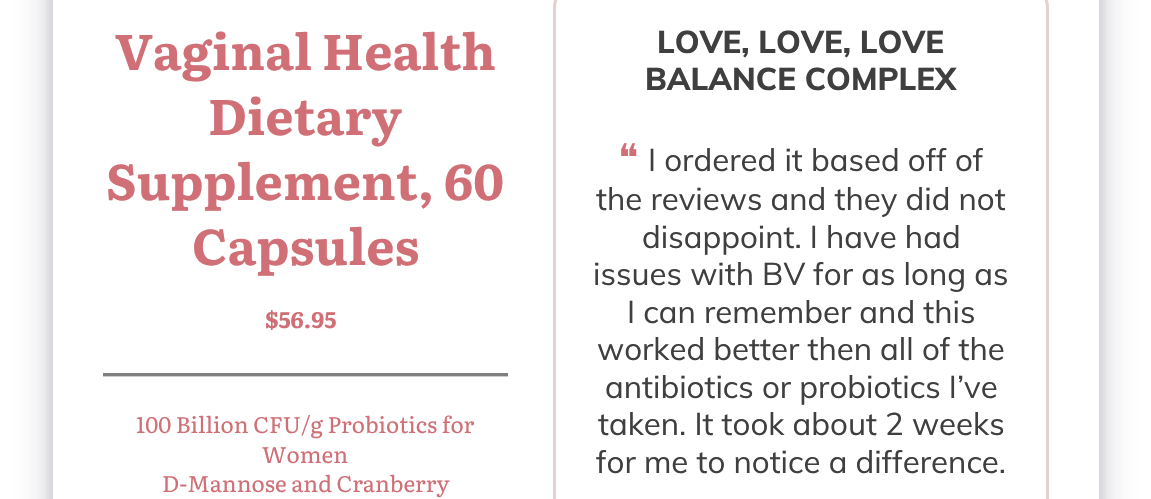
#include "include/core/SkBlurTypes.h"
#include "include/core/SkCanvas.h"
#include "include/core/SkData.h"
#include "include/core/SkFont.h"
#include "include/core/SkFontMgr.h"
#include "include/core/SkImage.h"
#include "include/core/SkMaskFilter.h"
#include "include/core/SkPaint.h"
#include "include/core/SkPathBuilder.h"
#include "include/core/SkTextBlob.h"
#include "include/effects/SkDashPathEffect.h"
#include "include/effects/SkGradientShader.h"
#include "include/utils/SkParsePath.h"

extern sk_sp<SkFontMgr> fontMgr;

static SkFont font(const char* family, int weight, float size, bool italic = false) {
    SkFontStyle style(weight, SkFontStyle::kNormal_Width,
        italic ? SkFontStyle::kItalic_Slant : SkFontStyle::kUpright_Slant);
    SkFont result(fontMgr->matchFamilyStyle(family, style), size);
    result.setSubpixel(true);
    return result;
}

static void drawLabel(SkCanvas* canvas, const char* s, float x, float y, const SkFont& font, SkColor color) {
    SkPaint ink(SkColor4f::FromColor(color));
    ink.setAntiAlias(true);
    canvas->drawString(s, x, y, font, ink);
}

static void fillRect(SkCanvas* canvas, float x, float y, float w, float h, SkColor color) {
    SkPaint ink(SkColor4f::FromColor(color));
    ink.setAntiAlias(true);
    canvas->drawRect(SkRect::MakeXYWH(x, y, w, h), ink);
}

static SkPath parsePath(const char* data, bool evenOdd = false) {
    SkPath result = *SkParsePath::FromSVGString(data);
    if (evenOdd) result.setFillType(SkPathFillType::kEvenOdd);
    return result;
}

void draw(SkCanvas* canvas) {
    SkPaint paint;
    paint.setAntiAlias(true);
    canvas->clear(0xFFFFFFFF);
    canvas->save();
    canvas->clipPath(parsePath("M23 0H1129V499H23ZM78-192H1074C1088-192 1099-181 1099-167V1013C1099 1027 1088 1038 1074 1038H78C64 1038 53 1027 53 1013V-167C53-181 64-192 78-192Z", true), true);
    paint.setColor(0x2B000000);
    paint.setMaskFilter(SkMaskFilter::MakeBlur(kNormal_SkBlurStyle, 9.5f));
    canvas->drawRoundRect(SkRect::MakeXYWH(53, -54, 1046, 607), 25, 25, paint);
    paint.setMaskFilter(nullptr);
    canvas->restore();
    canvas->save();
    canvas->clipPath(parsePath("M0 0H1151V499H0ZM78-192H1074C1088-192 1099-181 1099-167V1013C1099 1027 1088 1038 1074 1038H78C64 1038 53 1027 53 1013V-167C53-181 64-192 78-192Z", true), true);
    paint.setColor(0x3332325D);
    paint.setMaskFilter(SkMaskFilter::MakeBlur(kNormal_SkBlurStyle, 22));
    canvas->drawRoundRect(SkRect::MakeXYWH(53, -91, 1046, 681), 25, 25, paint);
    paint.setMaskFilter(nullptr);
    canvas->restore();
    SkFont font1 = font("Literata", 700, 50);
    drawLabel(canvas, "Vaginal Health", 115, 70, font1, 0xFFD06F75);
    drawLabel(canvas, "Dietary", 208, 135, font1, 0xFFD06F75);
    drawLabel(canvas, "Supplement, 60", 106, 200, font1, 0xFFD06F75);
    drawLabel(canvas, "Capsules", 192, 265, font1, 0xFFD06F75);
    SkFont font2 = font("Literata", 700, 22.5f);
    drawLabel(canvas, "$56.95", 265, 328, font2, 0xFFD06F75);
    fillRect(canvas, 103, 376, 405, 1, 0xFFCCCCCC);
    fillRect(canvas, 103, 373, 405, 3, 0xFF808080);
    SkFont font3 = font("Literata", 400, 22.5f);
    drawLabel(canvas, "100 Billion CFU/g Probiotics for", 136, 433, font3, 0xFFD06F75);
    drawLabel(canvas, "Women", 262, 463, font3, 0xFFD06F75);
    drawLabel(canvas, "D-Mannose and Cranberry", 162, 492, font3, 0xFFD06F75);
    paint.setStroke(true);
    paint.setStrokeWidth(3);
    paint.setColor(0xFFE4D1D1);
    canvas->drawRoundRect(SkRect::MakeXYWH(554.5f, -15.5f, 493, 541), 23.5f, 23.5f, paint);
    SkFont font4 = font("Muli", 800, 31.25f);
    drawLabel(canvas, "LOVE, LOVE, LOVE", 657, 53, font4, 0xFF3F3F3F);
    drawLabel(canvas, "BALANCE COMPLEX", 645, 90, font4, 0xFF3F3F3F);
    SkFont font5 = font("DejaVu Sans", 400, 38);
    drawLabel(canvas, "❝", 618, 171, font5, 0xFFD06F75);
    SkFont font6 = font("Muli", 400, 31.25f);
    drawLabel(canvas, "I ordered it based off of", 648, 171, font6, 0xFF3F3F3F);
    drawLabel(canvas, "the reviews and they did not", 596, 210, font6, 0xFF3F3F3F);
    drawLabel(canvas, "disappoint. I have had", 642, 248, font6, 0xFF3F3F3F);
    drawLabel(canvas, "issues with BV for as long as", 593, 285, font6, 0xFF3F3F3F);
    drawLabel(canvas, "I can remember and this", 627, 323, font6, 0xFF3F3F3F);
    drawLabel(canvas, "worked better then all of the", 597, 360, font6, 0xFF3F3F3F);
    drawLabel(canvas, "antibiotics or probiotics I’ve", 605, 398, font6, 0xFF3F3F3F);
    drawLabel(canvas, "taken. It took about 2 weeks", 598, 435, font6, 0xFF3F3F3F);
    drawLabel(canvas, "for me to notice a difference.", 596, 473, font6, 0xFF3F3F3F);
}
